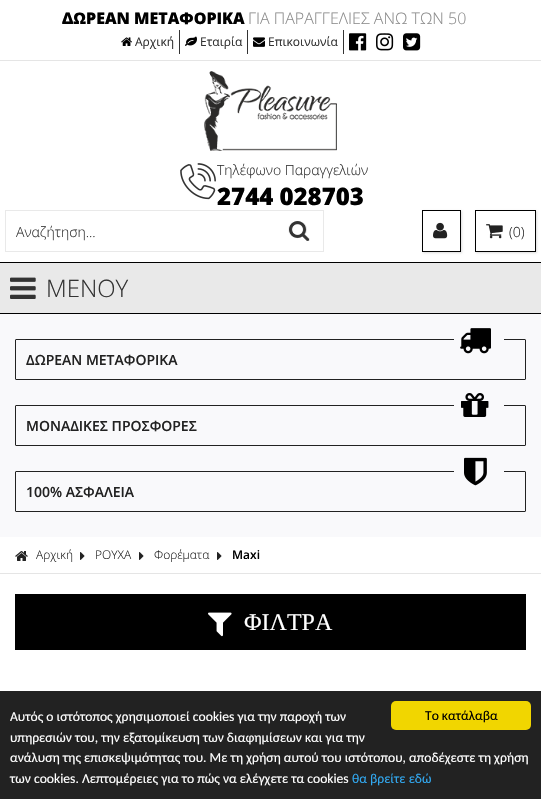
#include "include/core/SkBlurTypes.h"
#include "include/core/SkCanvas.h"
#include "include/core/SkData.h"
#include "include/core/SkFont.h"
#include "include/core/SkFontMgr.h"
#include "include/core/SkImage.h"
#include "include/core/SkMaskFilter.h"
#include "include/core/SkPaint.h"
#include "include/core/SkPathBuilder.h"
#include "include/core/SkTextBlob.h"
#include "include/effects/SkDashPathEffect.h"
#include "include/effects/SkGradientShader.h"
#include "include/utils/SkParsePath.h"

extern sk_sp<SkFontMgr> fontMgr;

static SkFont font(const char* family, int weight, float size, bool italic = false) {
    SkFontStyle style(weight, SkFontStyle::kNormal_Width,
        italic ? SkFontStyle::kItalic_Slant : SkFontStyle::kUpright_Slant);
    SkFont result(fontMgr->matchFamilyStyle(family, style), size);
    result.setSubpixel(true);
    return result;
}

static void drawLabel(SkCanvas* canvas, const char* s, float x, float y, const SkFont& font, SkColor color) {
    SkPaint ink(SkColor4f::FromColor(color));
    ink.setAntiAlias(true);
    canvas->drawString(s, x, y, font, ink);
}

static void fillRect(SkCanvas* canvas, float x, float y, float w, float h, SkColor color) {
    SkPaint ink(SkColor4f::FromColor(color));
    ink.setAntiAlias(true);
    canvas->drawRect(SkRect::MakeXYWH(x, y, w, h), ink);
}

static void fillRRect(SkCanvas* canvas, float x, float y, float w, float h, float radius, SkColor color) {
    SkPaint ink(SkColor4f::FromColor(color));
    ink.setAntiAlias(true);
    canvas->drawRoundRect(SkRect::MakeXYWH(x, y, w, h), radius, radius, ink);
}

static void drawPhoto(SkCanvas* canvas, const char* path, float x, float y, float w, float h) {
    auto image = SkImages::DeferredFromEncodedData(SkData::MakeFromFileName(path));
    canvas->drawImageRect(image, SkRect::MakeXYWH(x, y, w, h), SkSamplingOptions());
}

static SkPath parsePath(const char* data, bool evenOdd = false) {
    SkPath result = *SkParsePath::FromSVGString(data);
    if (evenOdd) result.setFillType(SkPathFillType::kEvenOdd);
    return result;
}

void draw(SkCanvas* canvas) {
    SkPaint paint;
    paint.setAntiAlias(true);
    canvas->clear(0xFFFFFFFF);
    fillRect(canvas, 0, 60, 541, 1, 0xFFE5E5E5);
    SkFont font1 = font("Open Sans", 800, 16);
    drawLabel(canvas, "ΔΩΡΕΑΝ ΜΕΤΑΦΟΡΙΚΑ", 62, 24, font1, 0xFF000000);
    SkFont font2 = font("Open Sans", 300, 16);
    drawLabel(canvas, "ΓΙΑ ΠΑΡΑΓΓΕΛΙΕΣ ΑΝΩ ΤΩΝ 50", 248, 24, font2, 0xFF8C8C8C);
    fillRect(canvas, 179, 30, 1, 24, 0xFF333333);
    drawPhoto(canvas, "assets/img1.png", 121, 37, 11, 9);
    SkFont font3 = font("Open Sans", 400, 12);
    drawLabel(canvas, "Αρχική", 135, 46, font3, 0xFF333333);
    fillRect(canvas, 247, 30, 1, 24, 0xFF333333);
    drawPhoto(canvas, "assets/img2.png", 185, 36, 12, 10);
    drawLabel(canvas, "Εταιρία", 200, 46, font3, 0xFF333333);
    fillRect(canvas, 343, 30, 1, 24, 0xFF333333);
    drawPhoto(canvas, "assets/img3.png", 253, 37, 12, 10);
    drawLabel(canvas, "Επικοινωνία", 268, 46, font3, 0xFF333333);
    drawPhoto(canvas, "assets/img4.png", 349, 33, 18, 18);
    drawPhoto(canvas, "assets/img5.png", 376, 33, 18, 18);
    drawPhoto(canvas, "assets/img6.png", 403, 33, 18, 18);
    drawPhoto(canvas, "assets/img7.png", 204, 71, 133, 80);
    drawPhoto(canvas, "assets/img8.png", 180, 163, 36, 37);
    SkFont font4 = font("Open Sans", 300, 14);
    drawLabel(canvas, "Τηλέφωνο Παραγγελιών", 217, 175, font4, 0xFF333333);
    SkFont font5 = font("Open Sans", 800, 24);
    drawLabel(canvas, "2744 028703", 217, 205, font5, 0xFF000000);
    paint.setStroke(true);
    paint.setStrokeWidth(1);
    paint.setColor(0xFFE9E9E9);
    canvas->drawRect(SkRect::MakeXYWH(5.5f, 210.5f, 318, 41), paint);
    drawLabel(canvas, "Αναζήτηση...", 16, 237, font4, 0xFF333333);
    drawPhoto(canvas, "assets/img9.png", 288, 221, 22, 20);
    canvas->save();
    canvas->clipPath(parsePath("M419 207H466V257H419ZM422 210H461V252H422Z", true), true);
    paint.setStroke(false);
    paint.setColor(0xFFDDDDDD);
    paint.setMaskFilter(SkMaskFilter::MakeBlur(kNormal_SkBlurStyle, 1));
    canvas->drawRect(SkRect::MakeXYWH(423, 211, 39, 42), paint);
    paint.setMaskFilter(nullptr);
    canvas->restore();
    paint.setStroke(true);
    paint.setColor(0xFF000000);
    canvas->drawRect(SkRect::MakeXYWH(422.5f, 210.5f, 38, 41), paint);
    drawPhoto(canvas, "assets/img10.png", 433, 222, 15, 17);
    canvas->save();
    canvas->clipPath(parsePath("M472 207H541V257H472ZM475 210H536V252H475Z", true), true);
    paint.setStroke(false);
    paint.setColor(0xFFDDDDDD);
    paint.setMaskFilter(SkMaskFilter::MakeBlur(kNormal_SkBlurStyle, 1));
    canvas->drawRect(SkRect::MakeXYWH(476, 211, 61, 42), paint);
    paint.setMaskFilter(nullptr);
    canvas->restore();
    paint.setStroke(true);
    paint.setColor(0xFF000000);
    canvas->drawRect(SkRect::MakeXYWH(475.5f, 210.5f, 60, 41), paint);
    drawPhoto(canvas, "assets/img11.png", 486, 224, 17, 15);
    drawLabel(canvas, "(0)", 509, 237, font4, 0xFF222222);
    fillRect(canvas, 0, 263, 541, 50, 0xFFE9E9E9);
    fillRect(canvas, 0, 262, 541, 1, 0xFF000000);
    fillRect(canvas, 0, 313, 541, 1, 0xFF000000);
    drawPhoto(canvas, "assets/img12.png", 10, 277, 26, 22);
    SkFont font6 = font("Open Sans", 300, 24);
    drawLabel(canvas, "ΜΕΝΟΥ", 46, 297, font6, 0xFF333333);
    fillRect(canvas, 0, 314, 541, 223, 0xFFF9F9FB);
    paint.setColor(0xFF222222);
    canvas->drawRoundRect(SkRect::MakeXYWH(15.5f, 339.5f, 510, 40), 0.5f, 0.5f, paint);
    SkFont font7 = font("Open Sans", 600, 14);
    drawLabel(canvas, "ΔΩΡΕΑΝ ΜΕΤΑΦΟΡΙΚΑ", 26, 365, font7, 0xFF222222);
    fillRRect(canvas, 454, 315, 50, 50, 2, 0xFFF9F9FB);
    drawPhoto(canvas, "assets/img13.png", 460, 328, 31, 26);
    canvas->drawRoundRect(SkRect::MakeXYWH(15.5f, 405.5f, 510, 40), 0.5f, 0.5f, paint);
    drawLabel(canvas, "ΜΟΝΑΔΙΚΕΣ ΠΡΟΣΦΟΡΕΣ", 26, 431, font7, 0xFF222222);
    fillRRect(canvas, 454, 381, 50, 50, 2, 0xFFF9F9FB);
    drawPhoto(canvas, "assets/img14.png", 461, 393, 28, 24);
    canvas->drawRoundRect(SkRect::MakeXYWH(15.5f, 471.5f, 510, 40), 0.5f, 0.5f, paint);
    drawLabel(canvas, "100% ΑΣΦΑΛΕΙΑ", 26, 497, font7, 0xFF222222);
    fillRRect(canvas, 454, 447, 50, 50, 2, 0xFFF9F9FB);
    drawPhoto(canvas, "assets/img15.png", 464, 457, 23, 29);
    fillRect(canvas, 0, 573, 541, 1, 0xFFE5E5E5);
    drawPhoto(canvas, "assets/img16.png", 15, 551, 13, 10);
    SkFont font8 = font("Open Sans", 300, 12);
    drawLabel(canvas, "Αρχική", 36, 559, font8, 0xFF222222);
    drawPhoto(canvas, "assets/img17.png", 80, 552, 5, 8);
    drawLabel(canvas, "ΡΟΥΧΑ", 95, 559, font8, 0xFF222222);
    drawPhoto(canvas, "assets/img17.png", 139, 552, 5, 8);
    drawLabel(canvas, "Φορέματα", 154, 559, font8, 0xFF222222);
    drawPhoto(canvas, "assets/img17.png", 217, 552, 5, 8);
    SkFont font9 = font("Open Sans", 600, 12);
    drawLabel(canvas, "Maxi", 232, 559, font9, 0xFF000000);
    fillRect(canvas, 15, 594, 511, 56, 0xFF000000);
    drawPhoto(canvas, "assets/img18.png", 208, 612, 24, 25);
    SkFont font10 = font("Liberation Serif", 400, 24);
    drawLabel(canvas, "ΦΙΛΤΡΑ", 244, 630, font10, 0xFFFFFFFF);
    fillRect(canvas, 0, 691, 541, 108, 0xFF222222);
    fillRRect(canvas, 391, 701, 140, 29, 5, 0xFFF1D600);
    SkFont font11 = font("Carlito", 400, 13.6f);
    drawLabel(canvas, "Το κατάλαβα", 425, 720, font11, 0xFF000000);
    drawLabel(canvas, "Αυτός ο ιστότοπος χρησιμοποιεί cookies για την παροχή των", 10, 721, font11, 0xFFFFFFFF);
    drawLabel(canvas, "υπηρεσιών του, την εξατομίκευση των διαφημίσεων και για την", 10, 742, font11, 0xFFFFFFFF);
    drawLabel(canvas, "ανάλυση της επισκεψιμότητας του. Με τη χρήση αυτού του ιστότοπου, αποδέχεστε τη χρήση", 10, 762, font11, 0xFFFFFFFF);
    drawLabel(canvas, "των cookies. Λεπτομέρειες για το πώς να ελέγχετε τα cookies", 10, 783, font11, 0xFFFFFFFF);
    drawLabel(canvas, "θα βρείτε εδώ", 352, 783, font11, 0xFF31A8F0);
}
